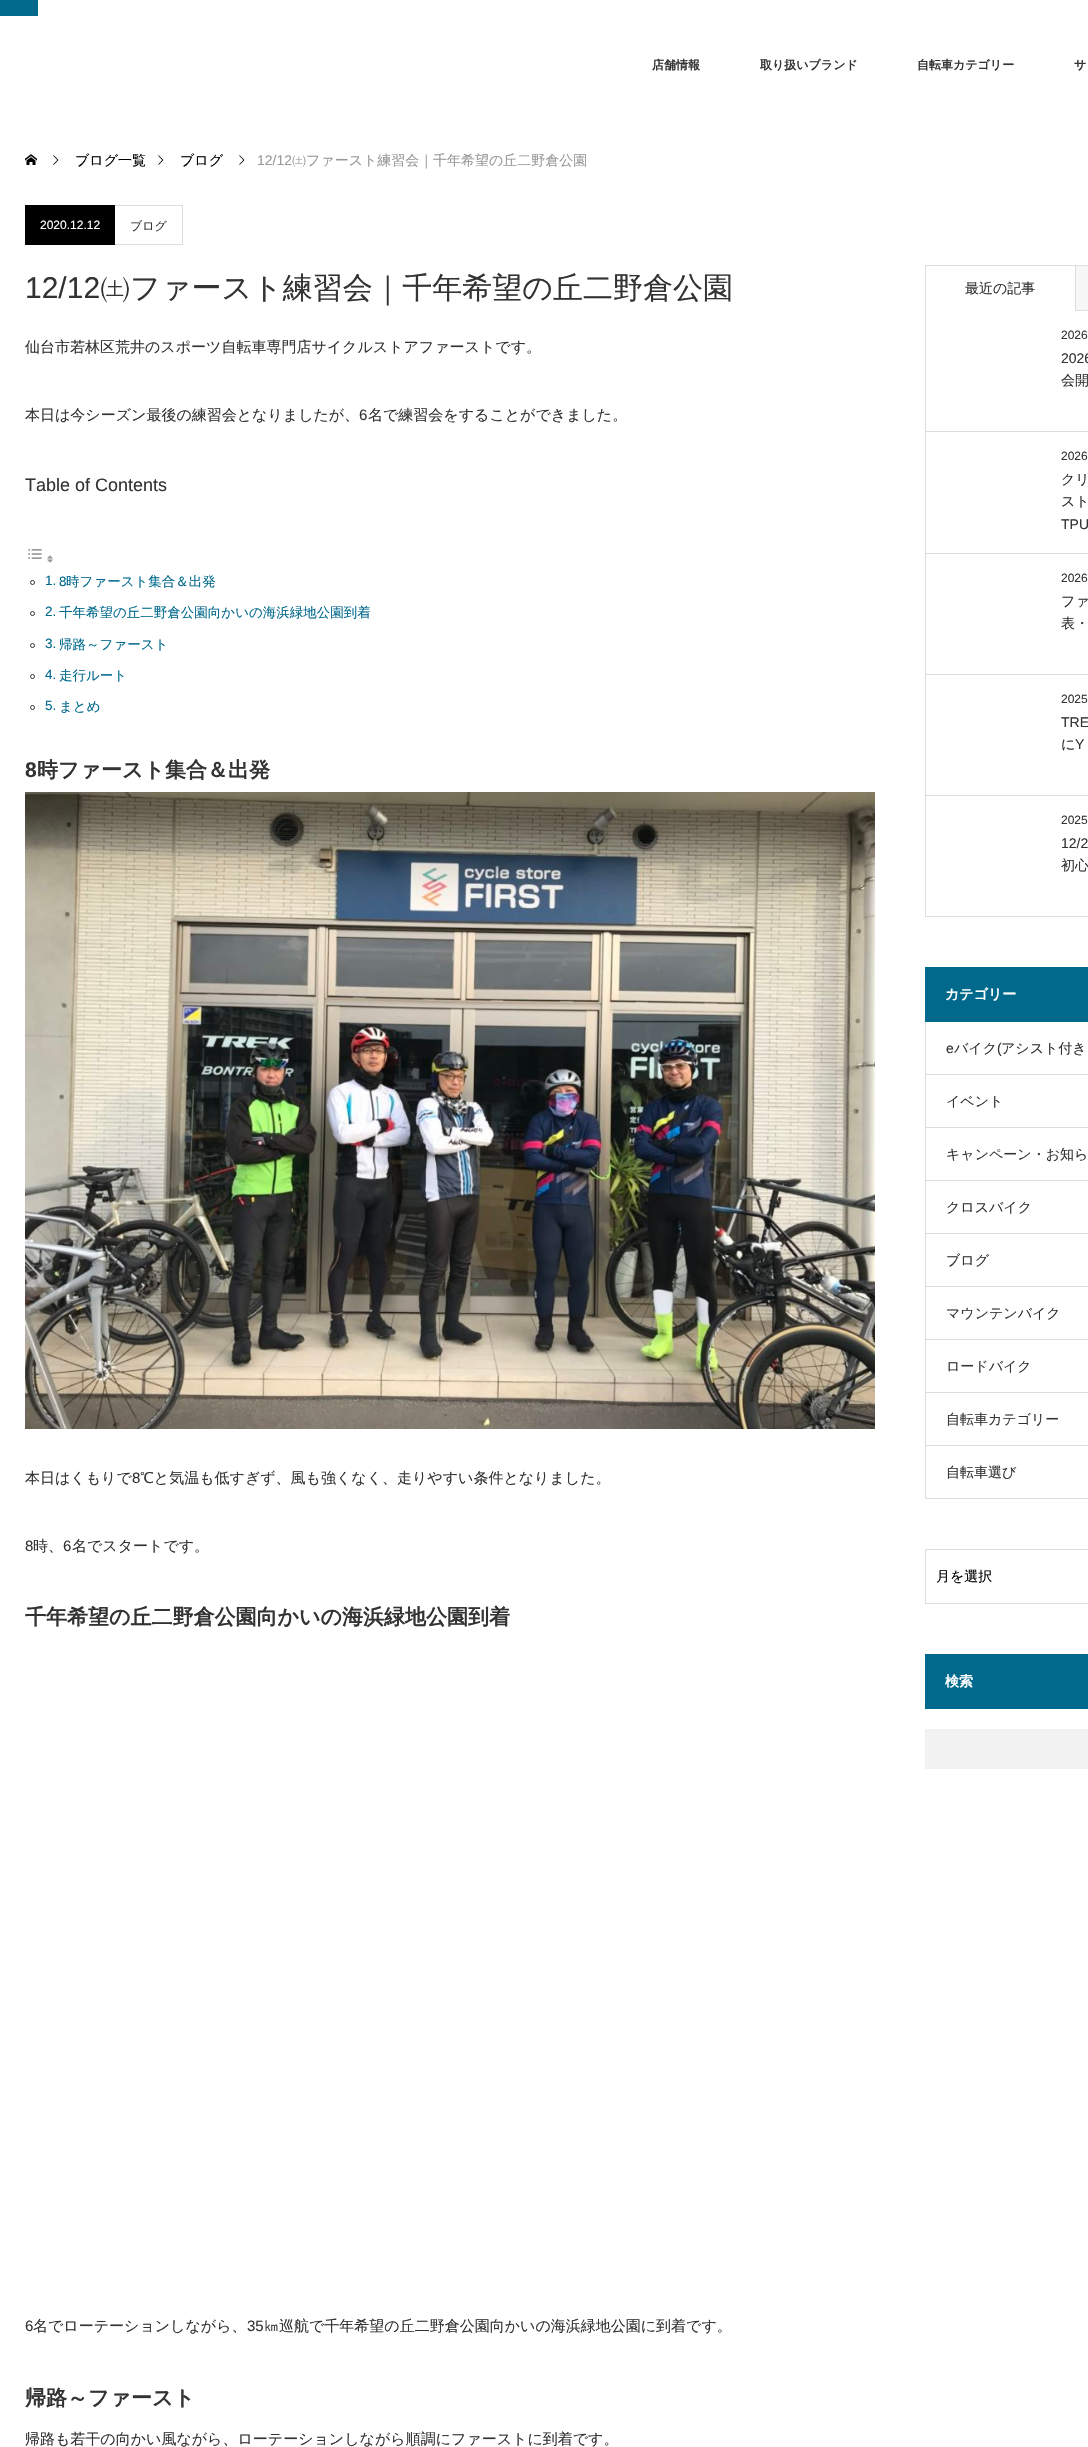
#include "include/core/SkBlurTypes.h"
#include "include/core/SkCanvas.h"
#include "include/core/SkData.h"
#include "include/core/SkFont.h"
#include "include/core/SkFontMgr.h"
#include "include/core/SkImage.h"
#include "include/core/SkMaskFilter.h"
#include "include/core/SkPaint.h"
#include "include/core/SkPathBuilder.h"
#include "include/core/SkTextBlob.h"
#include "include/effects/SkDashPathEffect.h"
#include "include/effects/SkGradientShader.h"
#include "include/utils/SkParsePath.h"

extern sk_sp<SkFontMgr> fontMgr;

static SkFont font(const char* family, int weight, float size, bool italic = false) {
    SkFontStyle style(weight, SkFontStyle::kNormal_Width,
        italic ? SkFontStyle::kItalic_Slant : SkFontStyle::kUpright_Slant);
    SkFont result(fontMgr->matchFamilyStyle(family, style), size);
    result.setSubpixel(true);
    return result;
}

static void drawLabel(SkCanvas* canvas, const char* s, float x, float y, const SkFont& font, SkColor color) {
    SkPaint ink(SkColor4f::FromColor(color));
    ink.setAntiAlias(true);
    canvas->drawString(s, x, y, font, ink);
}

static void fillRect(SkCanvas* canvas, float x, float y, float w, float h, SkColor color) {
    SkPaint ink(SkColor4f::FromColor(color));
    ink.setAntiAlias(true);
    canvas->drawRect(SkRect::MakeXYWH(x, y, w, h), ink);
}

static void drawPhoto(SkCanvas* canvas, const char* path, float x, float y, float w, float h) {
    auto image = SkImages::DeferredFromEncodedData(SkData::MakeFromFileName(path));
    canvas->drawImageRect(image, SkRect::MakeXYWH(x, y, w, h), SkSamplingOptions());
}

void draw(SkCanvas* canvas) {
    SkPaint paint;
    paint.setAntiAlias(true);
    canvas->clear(0xFFFFFFFF);
    fillRect(canvas, 0, 0, 38, 16, 0xFF00698C);
    SkFont font1 = font("WenQuanYi Zen Hei", 700, 12);
    drawLabel(canvas, "店舗情報", 652, 69, font1, 0xFF333333);
    drawLabel(canvas, "取り扱いブランド", 760, 69, font1, 0xFF333333);
    drawLabel(canvas, "自転車カテゴリー", 917, 69, font1, 0xFF333333);
    drawLabel(canvas, "サ", 1074, 69, font1, 0xFF333333);
    drawPhoto(canvas, "assets/img1.png", 25, 154, 12, 11);
    drawPhoto(canvas, "assets/img2.png", 53, 155, 6, 10);
    SkFont font2 = font("WenQuanYi Zen Hei", 500, 14);
    drawLabel(canvas, "ブログ一覧", 75, 165, font2, 0xFF000000);
    drawPhoto(canvas, "assets/img2.png", 158, 155, 6, 10);
    drawLabel(canvas, "ブログ", 180, 165, font2, 0xFF000000);
    drawPhoto(canvas, "assets/img2.png", 239, 155, 6, 10);
    SkFont font3 = font("Liberation Sans", 400, 14);
    drawLabel(canvas, "12/12", 257, 165, font3, 0xFF999999);
    drawLabel(canvas, "㈯ファースト練習会｜千年希望の丘二野倉公園", 292, 165, font2, 0xFF999999);
    fillRect(canvas, 25, 205, 90, 40, 0xFF000000);
    SkFont font4 = font("Liberation Sans", 400, 12);
    drawLabel(canvas, "2020.12.12", 40, 229, font4, 0xFFFFFFFF);
    fillRect(canvas, 115, 205, 68, 1, 0xFFDDDDDD);
    fillRect(canvas, 182, 205, 1, 40, 0xFFDDDDDD);
    fillRect(canvas, 115, 244, 68, 1, 0xFFDDDDDD);
    SkFont font5 = font("WenQuanYi Zen Hei", 500, 12);
    drawLabel(canvas, "ブログ", 130, 230, font5, 0xFF333333);
    SkFont font6 = font("Liberation Sans", 400, 30);
    drawLabel(canvas, "12/12", 25, 298, font6, 0xFF333333);
    SkFont font7 = font("WenQuanYi Zen Hei", 500, 30);
    drawLabel(canvas, "㈯ファースト練習会｜千年希望の丘二野倉公園", 100, 298, font7, 0xFF333333);
    SkFont font8 = font("WenQuanYi Zen Hei", 500, 15);
    drawLabel(canvas, "仙台市若林区荒井のスポーツ自転車専門店サイクルストアファーストです。", 25, 352, font8, 0xFF333333);
    drawLabel(canvas, "本日は今シーズン最後の練習会となりましたが、", 25, 420, font8, 0xFF333333);
    SkFont font9 = font("Liberation Sans", 400, 15);
    drawLabel(canvas, "6", 359, 420, font9, 0xFF333333);
    drawLabel(canvas, "名で練習会をすることができました。", 368, 420, font8, 0xFF333333);
    SkFont font10 = font("Liberation Sans", 400, 18);
    drawLabel(canvas, "Table of Contents", 25, 491, font10, 0xFF333333);
    drawPhoto(canvas, "assets/img3.png", 28, 549, 14, 10);
    drawPhoto(canvas, "assets/img4.png", 47, 555, 6, 8);
    paint.setStroke(true);
    paint.setStrokeWidth(1);
    paint.setColor(0xFF333333);
    canvas->drawCircle(32.5f, 582.5f, 2, paint);
    SkFont font11 = font("Liberation Sans", 400, 13.5f);
    drawLabel(canvas, "1.", 45, 585, font11, 0xFF00698C);
    drawLabel(canvas, "8", 59, 586, font11, 0xFF00698C);
    SkFont font12 = font("WenQuanYi Zen Hei", 500, 13.5f);
    drawLabel(canvas, "時ファースト集合＆出発", 66, 586, font12, 0xFF00698C);
    canvas->drawCircle(32.5f, 613.5f, 2, paint);
    drawLabel(canvas, "2.", 45, 616, font11, 0xFF00698C);
    drawLabel(canvas, "千年希望の丘二野倉公園向かいの海浜緑地公園到着", 59, 617, font12, 0xFF00698C);
    canvas->drawCircle(32.5f, 645.5f, 2, paint);
    drawLabel(canvas, "3.", 45, 648, font11, 0xFF00698C);
    drawLabel(canvas, "帰路～ファースト", 59, 649, font12, 0xFF00698C);
    canvas->drawCircle(32.5f, 676.5f, 2, paint);
    drawLabel(canvas, "4.", 45, 679, font11, 0xFF00698C);
    drawLabel(canvas, "走行ルート", 59, 680, font12, 0xFF00698C);
    canvas->drawCircle(32.5f, 707.5f, 2, paint);
    drawLabel(canvas, "5.", 45, 710, font11, 0xFF00698C);
    drawLabel(canvas, "まとめ", 59, 711, font12, 0xFF00698C);
    SkFont font13 = font("Liberation Sans", 700, 21);
    drawLabel(canvas, "8", 25, 777, font13, 0xFF333333);
    SkFont font14 = font("WenQuanYi Zen Hei", 700, 21);
    drawLabel(canvas, "時ファースト集合＆出発", 37, 777, font14, 0xFF333333);
    drawPhoto(canvas, "assets/img5.png", 25, 792, 850, 637);
    drawLabel(canvas, "本日はくもりで", 25, 1483, font8, 0xFF333333);
    drawLabel(canvas, "8", 132, 1483, font9, 0xFF333333);
    drawLabel(canvas, "℃と気温も低すぎず、風も強くなく、走りやすい条件となりました。", 140, 1483, font8, 0xFF333333);
    drawLabel(canvas, "8", 25, 1551, font9, 0xFF333333);
    drawLabel(canvas, "時、", 33, 1551, font8, 0xFF333333);
    drawLabel(canvas, "6", 63, 1551, font9, 0xFF333333);
    drawLabel(canvas, "名でスタートです。", 72, 1551, font8, 0xFF333333);
    drawLabel(canvas, "千年希望の丘二野倉公園向かいの海浜緑地公園到着", 25, 1624, font14, 0xFF333333);
    drawLabel(canvas, "6", 25, 2331, font9, 0xFF333333);
    drawLabel(canvas, "名でローテーションしながら、", 33, 2331, font8, 0xFF333333);
    drawLabel(canvas, "35", 247, 2331, font9, 0xFF333333);
    drawLabel(canvas, "㎞巡航で千年希望の丘二野倉公園向かいの海浜緑地公園に到着です。", 264, 2331, font8, 0xFF333333);
    drawLabel(canvas, "帰路～ファースト", 25, 2405, font14, 0xFF333333);
    drawLabel(canvas, "帰路も若干の向かい風ながら、ローテーションしながら順調にファーストに到着です。", 25, 2444, font8, 0xFF333333);
    paint.setColor(0xFFDDDDDD);
    canvas->drawRect(SkRect::MakeXYWH(925.5f, 310.5f, 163, 606), paint);
    fillRect(canvas, 926, 310, 149, 1, 0xFFFFFFFF);
    fillRect(canvas, 925, 265, 150, 1, 0xFFDDDDDD);
    fillRect(canvas, 925, 265, 1, 46, 0xFFDDDDDD);
    drawLabel(canvas, "最近の記事", 965, 293, font2, 0xFF333333);
    paint.setStroke(false);
    paint.setColor(0xFFF7F7F7);
    canvas->drawRect(SkRect::MakeXYWH(1075.5f, 265.5f, 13, 45), paint);
    paint.setStroke(true);
    paint.setColor(0xFFDDDDDD);
    canvas->drawRect(SkRect::MakeXYWH(1075.5f, 265.5f, 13, 45), paint);
    fillRect(canvas, 926, 431, 162, 1, 0xFFDDDDDD);
    drawLabel(canvas, "2026", 1061, 339, font4, 0xFF333333);
    drawLabel(canvas, "2026", 1061, 363, font3, 0xFF333333);
    drawLabel(canvas, "会開", 1061, 385, font2, 0xFF333333);
    fillRect(canvas, 926, 553, 162, 1, 0xFFDDDDDD);
    drawLabel(canvas, "2026", 1061, 460, font4, 0xFF333333);
    drawLabel(canvas, "クリ", 1061, 484, font2, 0xFF333333);
    drawLabel(canvas, "スト", 1061, 506, font2, 0xFF333333);
    drawLabel(canvas, "TPU", 1061, 529, font3, 0xFF333333);
    fillRect(canvas, 926, 674, 162, 1, 0xFFDDDDDD);
    drawLabel(canvas, "2026", 1061, 582, font4, 0xFF333333);
    drawLabel(canvas, "ファ", 1061, 606, font2, 0xFF333333);
    drawLabel(canvas, "表・", 1061, 628, font2, 0xFF333333);
    fillRect(canvas, 926, 795, 162, 1, 0xFFDDDDDD);
    drawLabel(canvas, "2025", 1061, 703, font4, 0xFF333333);
    drawLabel(canvas, "TRE", 1061, 727, font3, 0xFF333333);
    drawLabel(canvas, "に", 1061, 749, font2, 0xFF333333);
    drawLabel(canvas, "Y", 1075, 749, font3, 0xFF333333);
    drawLabel(canvas, "2025", 1061, 824, font4, 0xFF333333);
    drawLabel(canvas, "12/2", 1061, 848, font3, 0xFF333333);
    drawLabel(canvas, "初心", 1061, 870, font2, 0xFF333333);
    fillRect(canvas, 925, 967, 163, 55, 0xFF00698C);
    SkFont font15 = font("WenQuanYi Zen Hei", 700, 14);
    drawLabel(canvas, "カテゴリー", 945, 999, font15, 0xFFFFFFFF);
    fillRect(canvas, 925, 1074, 163, 1, 0xFFDDDDDD);
    fillRect(canvas, 925, 1022, 1, 53, 0xFFDDDDDD);
    drawLabel(canvas, "e", 946, 1053, font3, 0xFF333333);
    drawLabel(canvas, "バイク", 954, 1053, font2, 0xFF333333);
    drawLabel(canvas, "(", 997, 1053, font3, 0xFF333333);
    drawLabel(canvas, "アシスト付き", 1001, 1053, font2, 0xFF333333);
    fillRect(canvas, 925, 1127, 163, 1, 0xFFDDDDDD);
    fillRect(canvas, 925, 1075, 1, 53, 0xFFDDDDDD);
    drawLabel(canvas, "イベント", 946, 1106, font2, 0xFF333333);
    fillRect(canvas, 925, 1180, 163, 1, 0xFFDDDDDD);
    fillRect(canvas, 925, 1128, 1, 53, 0xFFDDDDDD);
    drawLabel(canvas, "キャンペーン・お知ら", 946, 1159, font2, 0xFF333333);
    fillRect(canvas, 925, 1233, 163, 1, 0xFFDDDDDD);
    fillRect(canvas, 925, 1181, 1, 53, 0xFFDDDDDD);
    drawLabel(canvas, "クロスバイク", 946, 1212, font2, 0xFF333333);
    fillRect(canvas, 925, 1286, 163, 1, 0xFFDDDDDD);
    fillRect(canvas, 925, 1234, 1, 53, 0xFFDDDDDD);
    drawLabel(canvas, "ブログ", 946, 1265, font2, 0xFF333333);
    fillRect(canvas, 925, 1339, 163, 1, 0xFFDDDDDD);
    fillRect(canvas, 925, 1287, 1, 53, 0xFFDDDDDD);
    drawLabel(canvas, "マウンテンバイク", 946, 1318, font2, 0xFF333333);
    fillRect(canvas, 925, 1392, 163, 1, 0xFFDDDDDD);
    fillRect(canvas, 925, 1340, 1, 53, 0xFFDDDDDD);
    drawLabel(canvas, "ロードバイク", 946, 1371, font2, 0xFF333333);
    fillRect(canvas, 925, 1445, 163, 1, 0xFFDDDDDD);
    fillRect(canvas, 925, 1393, 1, 53, 0xFFDDDDDD);
    drawLabel(canvas, "自転車カテゴリー", 946, 1424, font2, 0xFF333333);
    fillRect(canvas, 925, 1498, 163, 1, 0xFFDDDDDD);
    fillRect(canvas, 925, 1446, 1, 53, 0xFFDDDDDD);
    drawLabel(canvas, "自転車選び", 946, 1477, font2, 0xFF333333);
    canvas->drawRect(SkRect::MakeXYWH(925.5f, 1549.5f, 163, 54), paint);
    drawLabel(canvas, "月を選択", 936, 1581, font2, 0xFF000000);
    fillRect(canvas, 925, 1654, 163, 55, 0xFF00698C);
    drawLabel(canvas, "検索", 945, 1686, font15, 0xFFFFFFFF);
    fillRect(canvas, 925, 1729, 163, 40, 0xFFF2F2F2);
}
